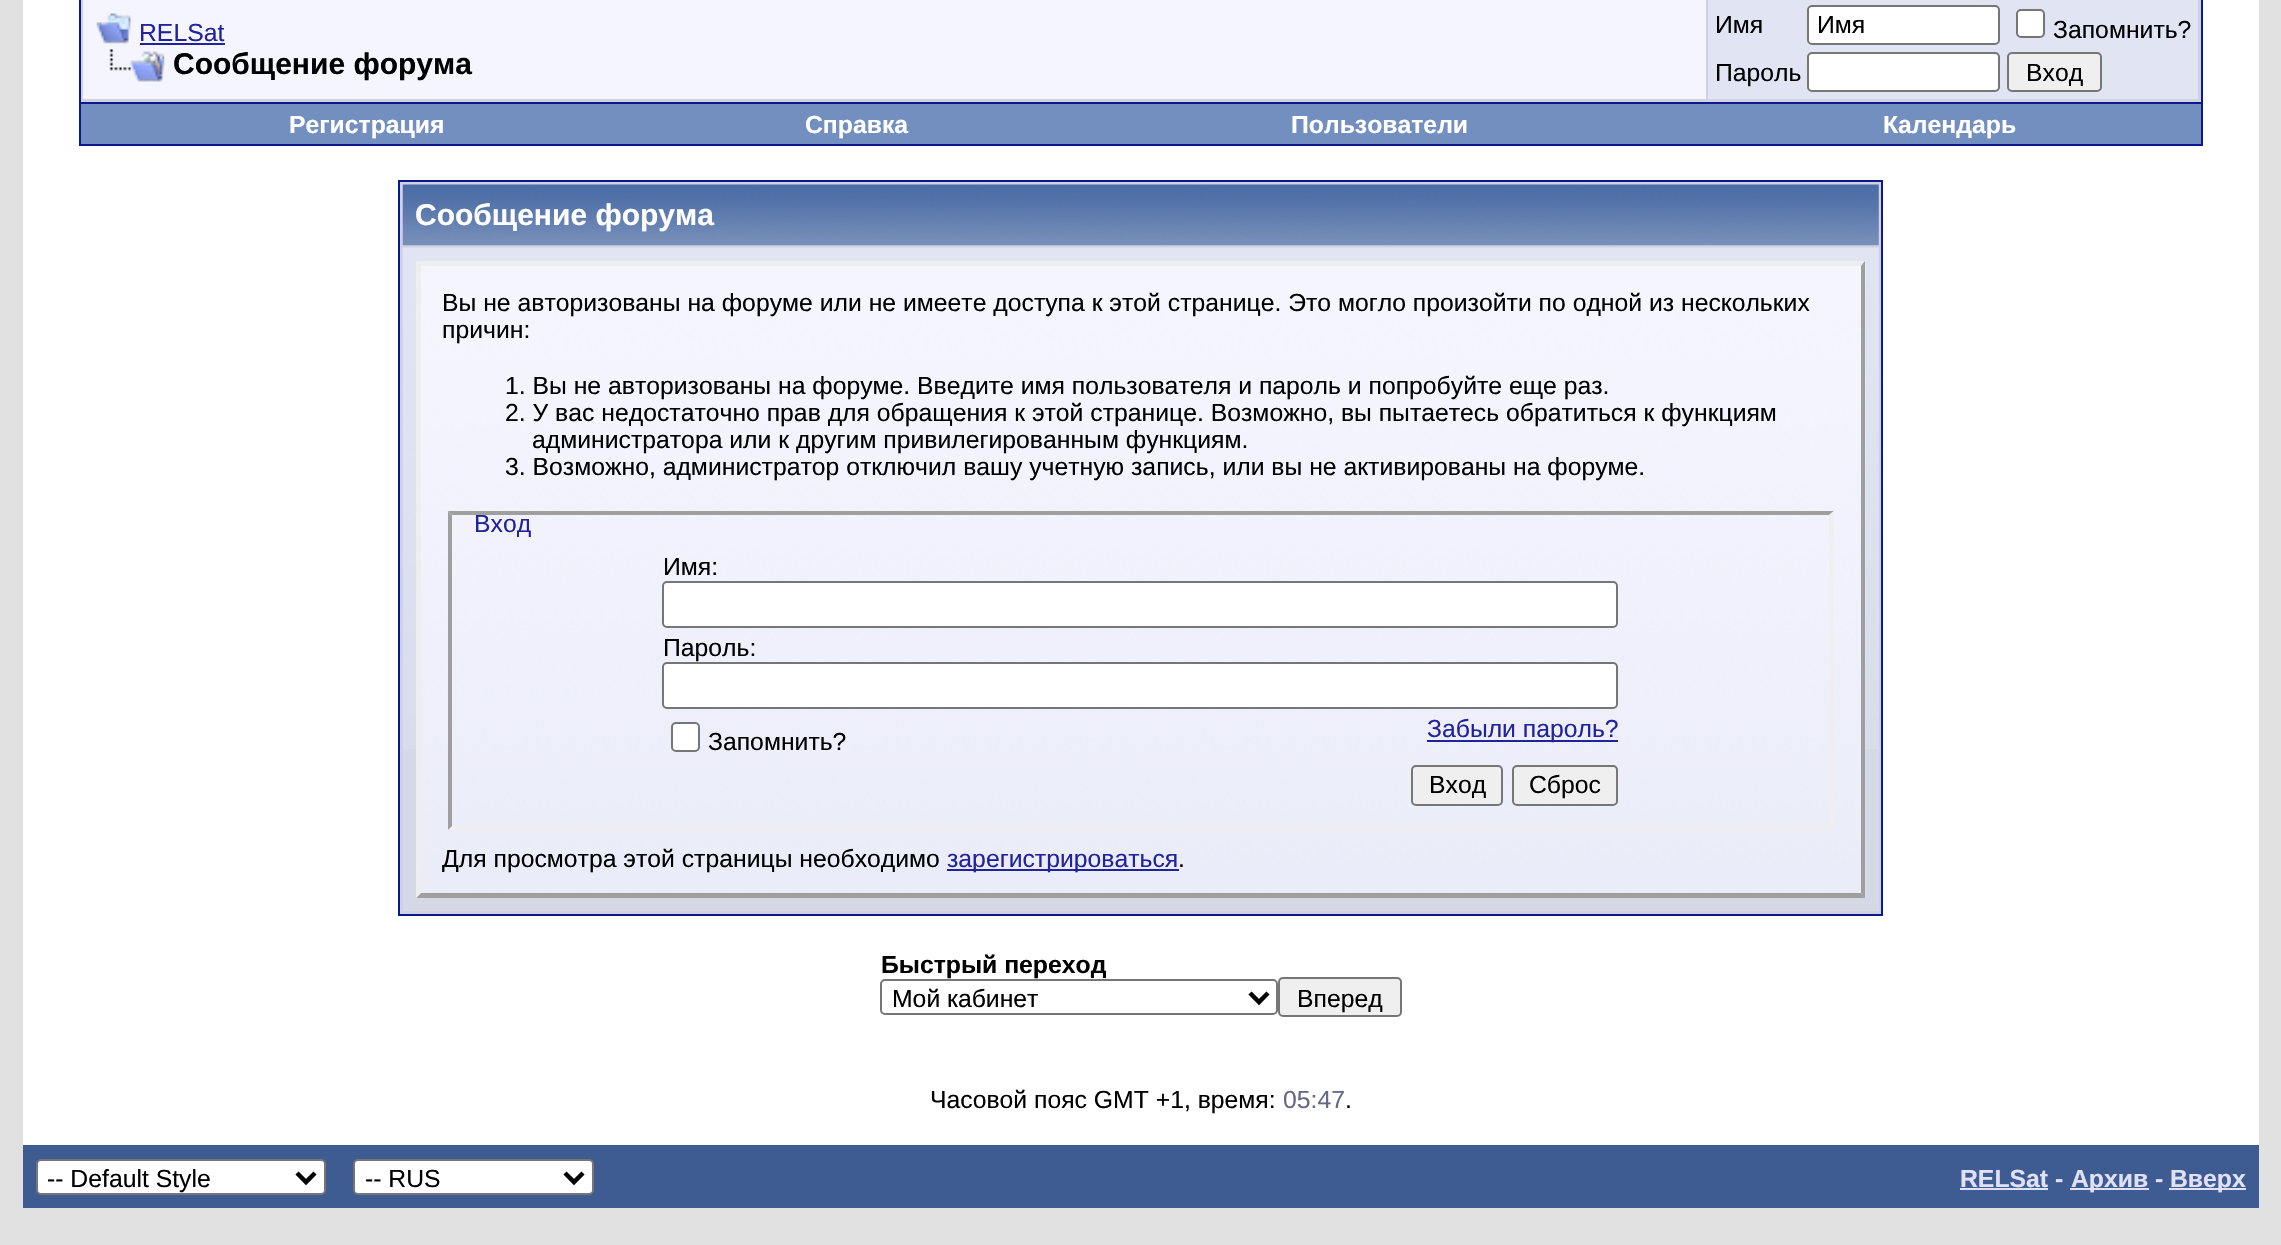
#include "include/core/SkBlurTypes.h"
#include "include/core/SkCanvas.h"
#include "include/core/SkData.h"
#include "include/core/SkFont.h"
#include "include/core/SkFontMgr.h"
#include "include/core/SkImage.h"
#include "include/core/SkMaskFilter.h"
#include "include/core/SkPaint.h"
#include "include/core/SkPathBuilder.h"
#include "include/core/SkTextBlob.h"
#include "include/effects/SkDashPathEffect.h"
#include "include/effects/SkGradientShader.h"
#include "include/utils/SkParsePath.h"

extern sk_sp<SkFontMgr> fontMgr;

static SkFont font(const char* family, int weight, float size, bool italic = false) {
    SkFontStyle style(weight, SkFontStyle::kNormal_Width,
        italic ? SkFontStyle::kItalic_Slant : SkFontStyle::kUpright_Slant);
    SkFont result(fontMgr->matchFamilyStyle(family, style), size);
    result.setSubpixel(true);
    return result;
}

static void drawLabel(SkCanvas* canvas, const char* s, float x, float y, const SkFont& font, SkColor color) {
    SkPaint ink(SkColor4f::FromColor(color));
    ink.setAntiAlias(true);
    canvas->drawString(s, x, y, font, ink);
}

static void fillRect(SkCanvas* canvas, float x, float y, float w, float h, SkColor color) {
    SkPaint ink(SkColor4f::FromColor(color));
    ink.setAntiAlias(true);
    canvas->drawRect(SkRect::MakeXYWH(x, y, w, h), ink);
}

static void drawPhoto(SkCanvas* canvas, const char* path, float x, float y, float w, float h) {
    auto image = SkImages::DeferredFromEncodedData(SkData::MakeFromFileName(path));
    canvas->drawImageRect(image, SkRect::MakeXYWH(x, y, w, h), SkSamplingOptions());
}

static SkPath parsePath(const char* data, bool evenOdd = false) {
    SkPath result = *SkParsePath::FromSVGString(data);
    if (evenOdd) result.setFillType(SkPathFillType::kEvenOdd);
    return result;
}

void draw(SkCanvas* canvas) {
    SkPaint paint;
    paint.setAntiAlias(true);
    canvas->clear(0xFFE1E1E2);
    fillRect(canvas, 23, 0, 2236, 1145, 0xFFFFFFFF);
    paint.setColor(0xFFD1D1E1);
    canvas->drawRect(SkRect::MakeXYWH(80, -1, 2122, 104), paint);
    paint.setStroke(true);
    paint.setStrokeWidth(2);
    paint.setColor(0xFF0B198C);
    canvas->drawRect(SkRect::MakeXYWH(80, -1, 2122, 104), paint);
    fillRect(canvas, 83, 0, 1623, 99, 0xFFF5F5FF);
    drawPhoto(canvas, "assets/img1.png", 96, 13, 35, 31);
    SkFont font1 = font("Liberation Sans", 400, 24.75f);
    drawLabel(canvas, "RELSat", 139, 41, font1, 0xFF22229C);
    fillRect(canvas, 140, 43, 85, 2, 0xFF22229C);
    drawPhoto(canvas, "assets/img2.png", 109, 49, 56, 33);
    SkFont font2 = font("Liberation Sans", 700, 30);
    drawLabel(canvas, "Сообщение форума", 173, 74, font2, 0xFF000000);
    fillRect(canvas, 1708, 0, 490, 99, 0xFFE1E4F2);
    drawLabel(canvas, "Имя", 1715, 33, font1, 0xFF000000);
    paint.setStroke(false);
    paint.setColor(0xFFFFFFFF);
    canvas->drawRoundRect(SkRect::MakeXYWH(1808, 6, 191, 38), 4, 4, paint);
    paint.setStroke(true);
    paint.setColor(0xFF767676);
    canvas->drawRoundRect(SkRect::MakeXYWH(1808, 6, 191, 38), 4, 4, paint);
    drawLabel(canvas, "Имя", 1817, 33, font1, 0xFF000000);
    paint.setStroke(false);
    paint.setColor(0xFFFFFFFF);
    canvas->drawRoundRect(SkRect::MakeXYWH(2017, 10, 27, 27), 4, 4, paint);
    paint.setStroke(true);
    paint.setColor(0xFF767676);
    canvas->drawRoundRect(SkRect::MakeXYWH(2017, 10, 27, 27), 4, 4, paint);
    drawLabel(canvas, "Запомнить?", 2053, 38, font1, 0xFF000000);
    drawLabel(canvas, "Пароль", 1715, 81, font1, 0xFF000000);
    paint.setStroke(false);
    paint.setColor(0xFFFFFFFF);
    canvas->drawRoundRect(SkRect::MakeXYWH(1808, 53, 191, 38), 4, 4, paint);
    paint.setStroke(true);
    paint.setColor(0xFF767676);
    canvas->drawRoundRect(SkRect::MakeXYWH(1808, 53, 191, 38), 4, 4, paint);
    paint.setStroke(false);
    paint.setColor(0xFFEFEFEF);
    canvas->drawRoundRect(SkRect::MakeXYWH(2008, 53, 93, 38), 4, 4, paint);
    paint.setStroke(true);
    paint.setColor(0xFF767676);
    canvas->drawRoundRect(SkRect::MakeXYWH(2008, 53, 93, 38), 4, 4, paint);
    drawLabel(canvas, "Вход", 2026, 81, font1, 0xFF000000);
    fillRect(canvas, 2201, 104, 2, 42, 0xFF0B198C);
    fillRect(canvas, 79, 144, 2124, 2, 0xFF0B198C);
    fillRect(canvas, 79, 104, 2, 42, 0xFF0B198C);
    fillRect(canvas, 81, 104, 2120, 40, 0xFF738FBF);
    SkFont font3 = font("Liberation Sans", 700, 24.75f);
    drawLabel(canvas, "Регистрация", 289, 133, font3, 0xFFFFFFFF);
    drawLabel(canvas, "Справка", 805, 133, font3, 0xFFFFFFFF);
    drawLabel(canvas, "Пользователи", 1291, 133, font3, 0xFFFFFFFF);
    drawLabel(canvas, "Календарь", 1883, 133, font3, 0xFFFFFFFF);
    paint.setStroke(false);
    paint.setColor(0xFFD1D1E1);
    canvas->drawRect(SkRect::MakeXYWH(399, 181, 1483, 734), paint);
    paint.setStroke(true);
    paint.setColor(0xFF0B198C);
    canvas->drawRect(SkRect::MakeXYWH(399, 181, 1483, 734), paint);
    drawPhoto(canvas, "assets/img3.png", 402, 184, 1477, 62);
    drawLabel(canvas, "Сообщение форума", 415, 225, font2, 0xFFFFFFFF);
    fillRect(canvas, 403, 248, 1476, 663, 0xFFD5D8E5);
    drawPhoto(canvas, "assets/img4.png", 402, 247, 1477, 502);
    drawPhoto(canvas, "assets/img5.png", 416, 265, 1450, 633);
    paint.setStroke(false);
    paint.setColor(0xFFEEEEEE);
    canvas->drawPath(parsePath("M416 261H1865L1861 266H421Z"), paint);
    paint.setColor(0xFF9F9F9F);
    canvas->drawPath(parsePath("M1865 261V898L1861 893V266Z"), paint);
    canvas->drawPath(parsePath("M1865 898H416L421 893H1861Z"), paint);
    paint.setColor(0xFFEEEEEE);
    canvas->drawPath(parsePath("M416 898V261L421 266V893Z"), paint);
    drawLabel(canvas, "Вы не авторизованы на форуме или не имеете доступа к этой странице. Это могло произойти по одной из нескольких", 442, 311, font1, 0xFF000000);
    drawLabel(canvas, "причин:", 442, 338, font1, 0xFF000000);
    drawLabel(canvas, "1. Вы не авторизованы на форуме. Введите имя пользователя и пароль и попробуйте еще раз.", 505, 394, font1, 0xFF000000);
    drawLabel(canvas, "2. У вас недостаточно прав для обращения к этой странице. Возможно, вы пытаетесь обратиться к функциям", 505, 421, font1, 0xFF000000);
    drawLabel(canvas, "администратора или к другим привилегированным функциям.", 532, 448, font1, 0xFF000000);
    drawLabel(canvas, "3. Возможно, администратор отключил вашу учетную запись, или вы не активированы на форуме.", 505, 475, font1, 0xFF000000);
    paint.setColor(0xFF9F9F9F);
    canvas->drawPath(parsePath("M448 511H1834L1829 515H452Z"), paint);
    paint.setColor(0xFFEFEFEF);
    canvas->drawPath(parsePath("M1834 511V830L1829 826V515Z"), paint);
    canvas->drawPath(parsePath("M1834 830H448L452 826H1829Z"), paint);
    paint.setColor(0xFF9F9F9F);
    canvas->drawPath(parsePath("M448 830V511L452 515V826Z"), paint);
    drawLabel(canvas, "Вход", 474, 532, font1, 0xFF22229C);
    drawLabel(canvas, "Имя:", 663, 575, font1, 0xFF000000);
    paint.setColor(0xFFFFFFFF);
    canvas->drawRoundRect(SkRect::MakeXYWH(663, 582, 954, 45), 4, 4, paint);
    paint.setStroke(true);
    paint.setColor(0xFF767676);
    canvas->drawRoundRect(SkRect::MakeXYWH(663, 582, 954, 45), 4, 4, paint);
    drawLabel(canvas, "Пароль:", 663, 656, font1, 0xFF000000);
    paint.setStroke(false);
    paint.setColor(0xFFFFFFFF);
    canvas->drawRoundRect(SkRect::MakeXYWH(663, 663, 954, 45), 4, 4, paint);
    paint.setStroke(true);
    paint.setColor(0xFF767676);
    canvas->drawRoundRect(SkRect::MakeXYWH(663, 663, 954, 45), 4, 4, paint);
    paint.setStroke(false);
    paint.setColor(0xFFFFFFFF);
    canvas->drawRoundRect(SkRect::MakeXYWH(672, 723, 27, 28), 4, 4, paint);
    paint.setStroke(true);
    paint.setColor(0xFF767676);
    canvas->drawRoundRect(SkRect::MakeXYWH(672, 723, 27, 28), 4, 4, paint);
    drawLabel(canvas, "Запомнить?", 708, 750, font1, 0xFF000000);
    fillRect(canvas, 1427, 740, 191, 2, 0xFF22229C);
    drawLabel(canvas, "Забыли пароль?", 1427, 737, font1, 0xFF22229C);
    paint.setStroke(false);
    paint.setColor(0xFFEFEFEF);
    canvas->drawRoundRect(SkRect::MakeXYWH(1412, 766, 90, 39), 4, 4, paint);
    paint.setStroke(true);
    paint.setColor(0xFF767676);
    canvas->drawRoundRect(SkRect::MakeXYWH(1412, 766, 90, 39), 4, 4, paint);
    drawLabel(canvas, "Вход", 1429, 793, font1, 0xFF000000);
    paint.setStroke(false);
    paint.setColor(0xFFEFEFEF);
    canvas->drawRoundRect(SkRect::MakeXYWH(1513, 766, 104, 39), 4, 4, paint);
    paint.setStroke(true);
    paint.setColor(0xFF767676);
    canvas->drawRoundRect(SkRect::MakeXYWH(1513, 766, 104, 39), 4, 4, paint);
    drawLabel(canvas, "Сброс", 1529, 793, font1, 0xFF000000);
    drawLabel(canvas, "Для просмотра этой страницы необходимо", 442, 867, font1, 0xFF000000);
    fillRect(canvas, 947, 869, 232, 2, 0xFF22229C);
    drawLabel(canvas, "зарегистрироваться", 947, 867, font1, 0xFF22229C);
    drawLabel(canvas, ".", 1178, 867, font1, 0xFF000000);
    drawLabel(canvas, "Быстрый переход", 881, 973, font3, 0xFF000000);
    canvas->drawRoundRect(SkRect::MakeXYWH(881, 980, 396, 34), 4, 4, paint);
    paint.setStrokeWidth(4.5f);
    paint.setColor(0xFF000000);
    canvas->drawPath(parsePath("M1250 993L1259 1002L1268 993"), paint);
    drawLabel(canvas, "Мой кабинет", 892, 1007, font1, 0xFF000000);
    paint.setStroke(false);
    paint.setColor(0xFFEFEFEF);
    canvas->drawRoundRect(SkRect::MakeXYWH(1279, 978, 122, 38), 4, 4, paint);
    paint.setStroke(true);
    paint.setStrokeWidth(2);
    paint.setColor(0xFF767676);
    canvas->drawRoundRect(SkRect::MakeXYWH(1279, 978, 122, 38), 4, 4, paint);
    drawLabel(canvas, "Вперед", 1297, 1007, font1, 0xFF000000);
    drawLabel(canvas, "Часовой пояс GMT +1, время:", 930, 1108, font1, 0xFF000000);
    drawLabel(canvas, "05:47", 1283, 1108, font1, 0xFF666686);
    drawLabel(canvas, ".", 1345, 1108, font1, 0xFF000000);
    fillRect(canvas, 23, 1145, 2236, 63, 0xFF3E5C92);
    paint.setStroke(false);
    paint.setColor(0xFFFFFFFF);
    canvas->drawRoundRect(SkRect::MakeXYWH(37, 1160, 288, 34), 4, 4, paint);
    paint.setStroke(true);
    paint.setColor(0xFF767676);
    canvas->drawRoundRect(SkRect::MakeXYWH(37, 1160, 288, 34), 4, 4, paint);
    paint.setStrokeWidth(4.5f);
    paint.setColor(0xFF000000);
    canvas->drawPath(parsePath("M297 1173L306 1182L315 1173"), paint);
    drawLabel(canvas, "-- Default Style", 47, 1187, font1, 0xFF000000);
    paint.setStroke(false);
    paint.setColor(0xFFFFFFFF);
    canvas->drawRoundRect(SkRect::MakeXYWH(354, 1160, 239, 34), 4, 4, paint);
    paint.setStroke(true);
    paint.setStrokeWidth(2);
    paint.setColor(0xFF767676);
    canvas->drawRoundRect(SkRect::MakeXYWH(354, 1160, 239, 34), 4, 4, paint);
    paint.setStrokeWidth(4.5f);
    paint.setColor(0xFF000000);
    canvas->drawPath(parsePath("M565 1173L574 1182L583 1173"), paint);
    drawLabel(canvas, "-- RUS", 365, 1187, font1, 0xFF000000);
    drawLabel(canvas, "RELSat -", 1960, 1187, font3, 0xFFE0E0F6);
    fillRect(canvas, 1960, 1188, 88, 2, 0xFFE0E0F6);
    fillRect(canvas, 2070, 1188, 79, 2, 0xFFE0E0F6);
    drawLabel(canvas, "Архив -", 2071, 1187, font3, 0xFFE0E0F6);
    fillRect(canvas, 2169, 1188, 77, 2, 0xFFE0E0F6);
    drawLabel(canvas, "Вверх", 2170, 1187, font3, 0xFFE0E0F6);
}
